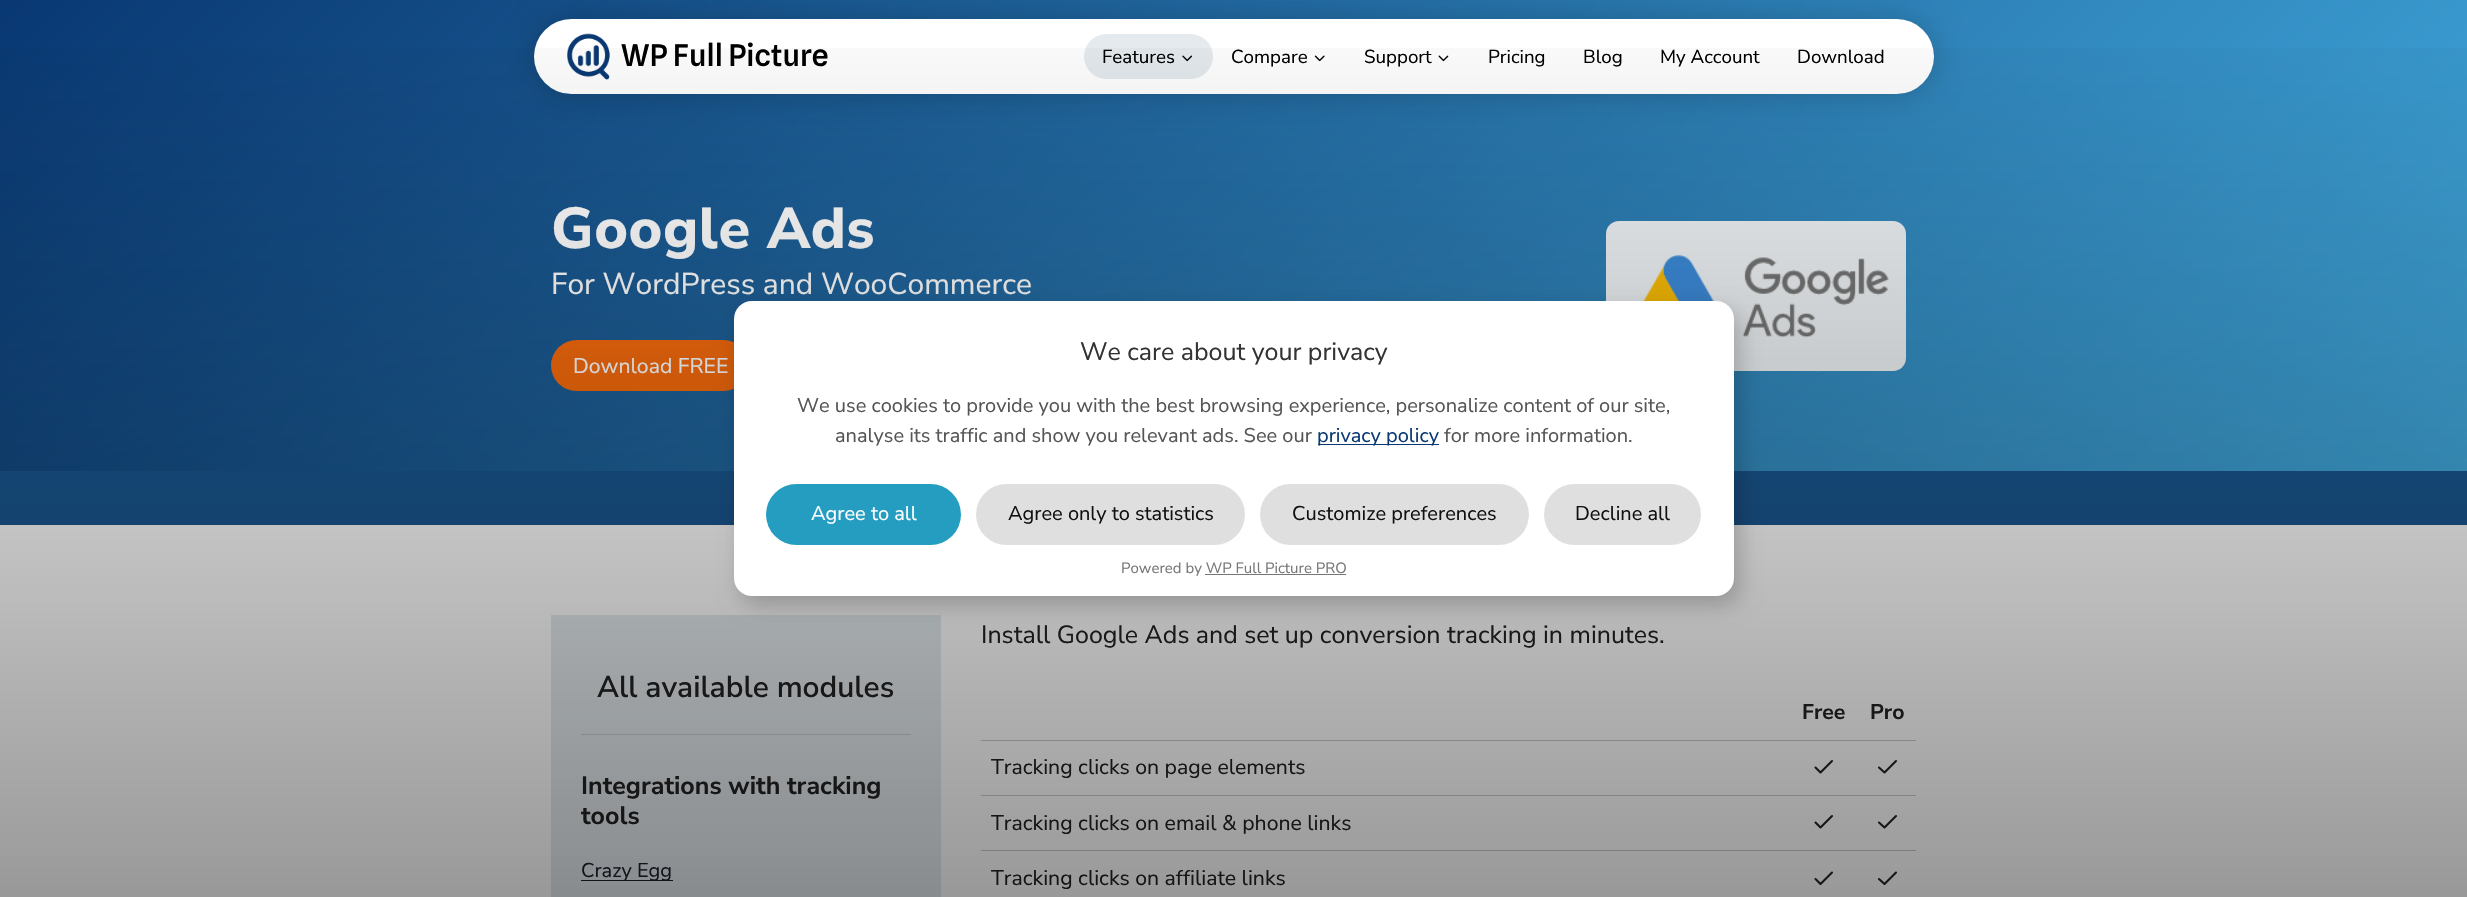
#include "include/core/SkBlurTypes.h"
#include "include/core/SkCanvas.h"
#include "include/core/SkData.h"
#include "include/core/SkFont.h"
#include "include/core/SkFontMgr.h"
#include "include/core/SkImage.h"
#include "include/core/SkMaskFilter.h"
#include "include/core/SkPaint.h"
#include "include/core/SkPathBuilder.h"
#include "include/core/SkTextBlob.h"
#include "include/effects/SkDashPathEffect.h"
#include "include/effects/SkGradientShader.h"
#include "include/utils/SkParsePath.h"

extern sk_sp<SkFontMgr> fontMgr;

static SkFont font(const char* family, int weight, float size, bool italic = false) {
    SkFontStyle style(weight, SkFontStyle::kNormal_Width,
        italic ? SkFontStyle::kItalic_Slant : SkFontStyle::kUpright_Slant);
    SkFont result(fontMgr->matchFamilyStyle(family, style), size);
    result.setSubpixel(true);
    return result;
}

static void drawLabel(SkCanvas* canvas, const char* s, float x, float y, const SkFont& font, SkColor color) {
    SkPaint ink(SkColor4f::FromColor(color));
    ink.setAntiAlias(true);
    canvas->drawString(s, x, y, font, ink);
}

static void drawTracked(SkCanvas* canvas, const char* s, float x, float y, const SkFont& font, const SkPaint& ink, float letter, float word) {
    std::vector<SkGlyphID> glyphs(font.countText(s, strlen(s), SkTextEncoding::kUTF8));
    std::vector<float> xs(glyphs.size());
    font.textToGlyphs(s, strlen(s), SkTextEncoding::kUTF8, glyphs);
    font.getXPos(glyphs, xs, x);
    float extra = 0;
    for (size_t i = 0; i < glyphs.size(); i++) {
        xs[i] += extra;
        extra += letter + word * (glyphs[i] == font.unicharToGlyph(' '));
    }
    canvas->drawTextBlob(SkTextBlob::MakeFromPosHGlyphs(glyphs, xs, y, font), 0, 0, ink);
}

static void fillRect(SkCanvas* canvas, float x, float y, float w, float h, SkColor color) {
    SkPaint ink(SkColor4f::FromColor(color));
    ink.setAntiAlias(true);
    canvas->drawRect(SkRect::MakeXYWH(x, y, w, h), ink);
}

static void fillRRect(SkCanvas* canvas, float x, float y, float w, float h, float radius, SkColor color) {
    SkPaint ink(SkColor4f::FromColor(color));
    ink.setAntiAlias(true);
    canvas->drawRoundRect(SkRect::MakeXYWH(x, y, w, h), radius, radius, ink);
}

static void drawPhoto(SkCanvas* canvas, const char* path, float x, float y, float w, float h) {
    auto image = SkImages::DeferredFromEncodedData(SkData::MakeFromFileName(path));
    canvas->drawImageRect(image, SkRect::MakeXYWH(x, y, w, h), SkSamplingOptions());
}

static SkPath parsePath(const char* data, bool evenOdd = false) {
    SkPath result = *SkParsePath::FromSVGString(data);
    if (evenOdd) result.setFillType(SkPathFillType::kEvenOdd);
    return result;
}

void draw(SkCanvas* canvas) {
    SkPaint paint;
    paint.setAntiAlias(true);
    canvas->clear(0xFFFFFFFF);
    {
        const SkColor colors[] = {0xFF093873, 0xFF41A9DD};
        const float stops[] = {0, 1};
        const SkPoint ends[] = {{499, -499}, {1968, 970}};
        paint.setShader(SkGradientShader::MakeLinear(ends, colors, stops, 2, SkTileMode::kClamp));
        paint.setAlpha(255);
    }
    canvas->drawRect(SkRect::MakeXYWH(0, 0, 2467, 471), paint);
    paint.setShader(nullptr);
    paint.setColor(0x33000000);
    paint.setMaskFilter(SkMaskFilter::MakeBlur(kNormal_SkBlurStyle, 15.5f));
    canvas->drawRoundRect(SkRect::MakeXYWH(534, 19, 1400, 75), 37.5f, 37.5f, paint);
    paint.setMaskFilter(nullptr);
    fillRRect(canvas, 534, 19, 1400, 75, 37.5f, 0xFFFFFFFF);
    drawPhoto(canvas, "assets/img1.png", 567, 33, 43, 47);
    SkFont font1 = font("Spline Sans", 500, 30);
    drawLabel(canvas, "WP Full Picture", 621, 66, font1, 0xFF000000);
    fillRRect(canvas, 1084, 34, 129, 45, 22.5f, 0xFFE4EAEE);
    SkFont font2 = font("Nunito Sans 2", 200, 18.75f);
    drawLabel(canvas, "Features", 1102, 63, font2, 0xFF000000);
    drawPhoto(canvas, "assets/img2.png", 1182, 55, 11, 7);
    drawLabel(canvas, "Compare", 1231, 63, font2, 0xFF000000);
    drawPhoto(canvas, "assets/img3.png", 1314, 55, 11, 7);
    drawLabel(canvas, "Support", 1364, 63, font2, 0xFF000000);
    drawPhoto(canvas, "assets/img4.png", 1438, 55, 11, 7);
    drawLabel(canvas, "Pricing", 1488, 63, font2, 0xFF000000);
    drawLabel(canvas, "Blog", 1583, 63, font2, 0xFF000000);
    drawLabel(canvas, "My Account", 1660, 63, font2, 0xFF000000);
    drawLabel(canvas, "Download", 1797, 63, font2, 0xFF000000);
    SkFont font3 = font("Nunito Sans", 200, 57.5f);
    paint.setColor(0xFFFFFFFF);
    drawTracked(canvas, "Google Ads", 551, 248, font3, paint, 0.5f, 0);
    SkFont font4 = font("Nunito Sans 2", 200, 30);
    drawLabel(canvas, "For WordPress and WooCommerce", 551, 294, font4, 0xFFFFFFFF);
    fillRRect(canvas, 551, 340, 198, 51, 25.5f, 0xFFF76A0C);
    SkFont font5 = font("Nunito Sans 2", 200, 21.25f);
    drawLabel(canvas, "Download FREE", 573, 373, font5, 0xFFFFFFFF);
    fillRRect(canvas, 1606, 221, 300, 150, 13, 0xFFF0F4F6);
    drawPhoto(canvas, "assets/img5.png", 1643, 254, 246, 84);
    drawPhoto(canvas, "assets/img6.png", 1815, 371, 5, 1);
    fillRect(canvas, 0, 471, 2467, 54, 0xFF195790);
    fillRect(canvas, 551, 615, 390, 282, 0xFFE4EAEE);
    fillRect(canvas, 581, 734, 330, 1, 0xFFC5CCD0);
    SkFont font6 = font("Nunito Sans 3", 200, 30);
    drawLabel(canvas, "All available modules", 597, 697, font6, 0xFF222222);
    SkFont font7 = font("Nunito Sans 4", 200, 25);
    drawLabel(canvas, "Integrations with tracking", 581, 794, font7, 0xFF222222);
    drawLabel(canvas, "tools", 581, 824, font7, 0xFF222222);
    fillRect(canvas, 581, 880, 92, 1, 0xFF1A202C);
    SkFont font8 = font("Nunito Sans 2", 200, 20);
    drawLabel(canvas, "Crazy Egg", 581, 877, font8, 0xFF1A202C);
    SkFont font9 = font("Nunito Sans 2", 200, 25);
    drawLabel(canvas, "Install Google Ads and set up conversion tracking in minutes.", 981, 643, font9, 0xFF222222);
    SkFont font10 = font("Nunito Sans 4", 200, 21.25f);
    drawLabel(canvas, "Free", 1802, 719, font10, 0xFF222222);
    fillRect(canvas, 981, 740, 935, 1, 0xFFC5CCD0);
    drawLabel(canvas, "Pro", 1870, 719, font10, 0xFF222222);
    fillRect(canvas, 981, 795, 935, 1, 0xFFC5CCD0);
    paint.setStroke(true);
    paint.setStrokeWidth(2.1f);
    paint.setStrokeCap(SkPaint::kRound_Cap);
    paint.setStrokeJoin(SkPaint::kRound_Join);
    paint.setColor(0xFF222222);
    canvas->drawPath(parsePath("M1896 761L1884.5 772.5L1879 767.5"), paint);
    drawLabel(canvas, "Tracking clicks on page elements", 991, 774, font5, 0xFF222222);
    canvas->drawPath(parsePath("M1832 761L1820.5 772.5L1815.5 767.5"), paint);
    fillRect(canvas, 981, 850, 935, 1, 0xFFC5CCD0);
    canvas->drawPath(parsePath("M1896 816L1884.5 827.5L1879 822.5"), paint);
    drawLabel(canvas, "Tracking clicks on email & phone links", 991, 830, font5, 0xFF222222);
    canvas->drawPath(parsePath("M1832 816L1820.5 827.5L1815.5 822.5"), paint);
    drawLabel(canvas, "Tracking clicks on affiliate links", 991, 885, font5, 0xFF222222);
    canvas->drawPath(parsePath("M1832 872.5L1820.5 884L1815.5 879"), paint);
    canvas->drawPath(parsePath("M1896 872.5L1884.5 884L1879 879"), paint);
    paint.setStroke(false);
    {
        const SkColor colors[] = {0x66000000, 0x00000000};
        const float stops[] = {0, 1};
        const SkPoint ends[] = {{1234, 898}, {1234, 0}};
        paint.setShader(SkGradientShader::MakeLinear(ends, colors, stops, 2, SkTileMode::kClamp));
        paint.setAlpha(255);
    }
    canvas->drawRect(SkRect::MakeXYWH(0, 48, 2467, 849), paint);
    paint.setShader(nullptr);
    paint.setColor(0x33000000);
    paint.setMaskFilter(SkMaskFilter::MakeBlur(kNormal_SkBlurStyle, 10.5f));
    canvas->drawRoundRect(SkRect::MakeXYWH(740, 310, 1000, 295), 18, 18, paint);
    paint.setMaskFilter(nullptr);
    fillRRect(canvas, 734, 301, 1000, 295, 18, 0xFFFFFFFF);
    drawLabel(canvas, "We care about your privacy", 1080, 360, font9, 0xFF333333);
    drawLabel(canvas, "We use cookies to provide you with the best browsing experience, personalize content of our site,", 797, 412, font8, 0xFF555555);
    drawLabel(canvas, "analyse its traffic and show you relevant ads. See our", 835, 442, font8, 0xFF555555);
    fillRect(canvas, 1318, 444, 121, 1, 0xFF093873);
    drawLabel(canvas, "privacy policy", 1317, 442, font8, 0xFF093873);
    drawLabel(canvas, "for more information.", 1444, 442, font8, 0xFF555555);
    fillRRect(canvas, 766, 484, 195, 61, 30.5f, 0xFF249DC1);
    drawLabel(canvas, "Agree to all", 811, 520, font8, 0xFFFFFFFF);
    fillRRect(canvas, 976, 484, 269, 61, 30.5f, 0xFFDFDFDF);
    drawLabel(canvas, "Agree only to statistics", 1008, 520, font8, 0xFF111111);
    fillRRect(canvas, 1260, 484, 269, 61, 30.5f, 0xFFDFDFDF);
    drawLabel(canvas, "Customize preferences", 1292, 520, font8, 0xFF111111);
    fillRRect(canvas, 1544, 484, 157, 61, 30.5f, 0xFFDFDFDF);
    drawLabel(canvas, "Decline all", 1575, 520, font8, 0xFF111111);
    SkFont font11 = font("Nunito Sans 2", 200, 15);
    drawLabel(canvas, "Powered by WP Full Picture PRO", 1121, 573, font11, 0xFF777777);
    fillRect(canvas, 1205, 574, 141, 1, 0xFF777777);
}
